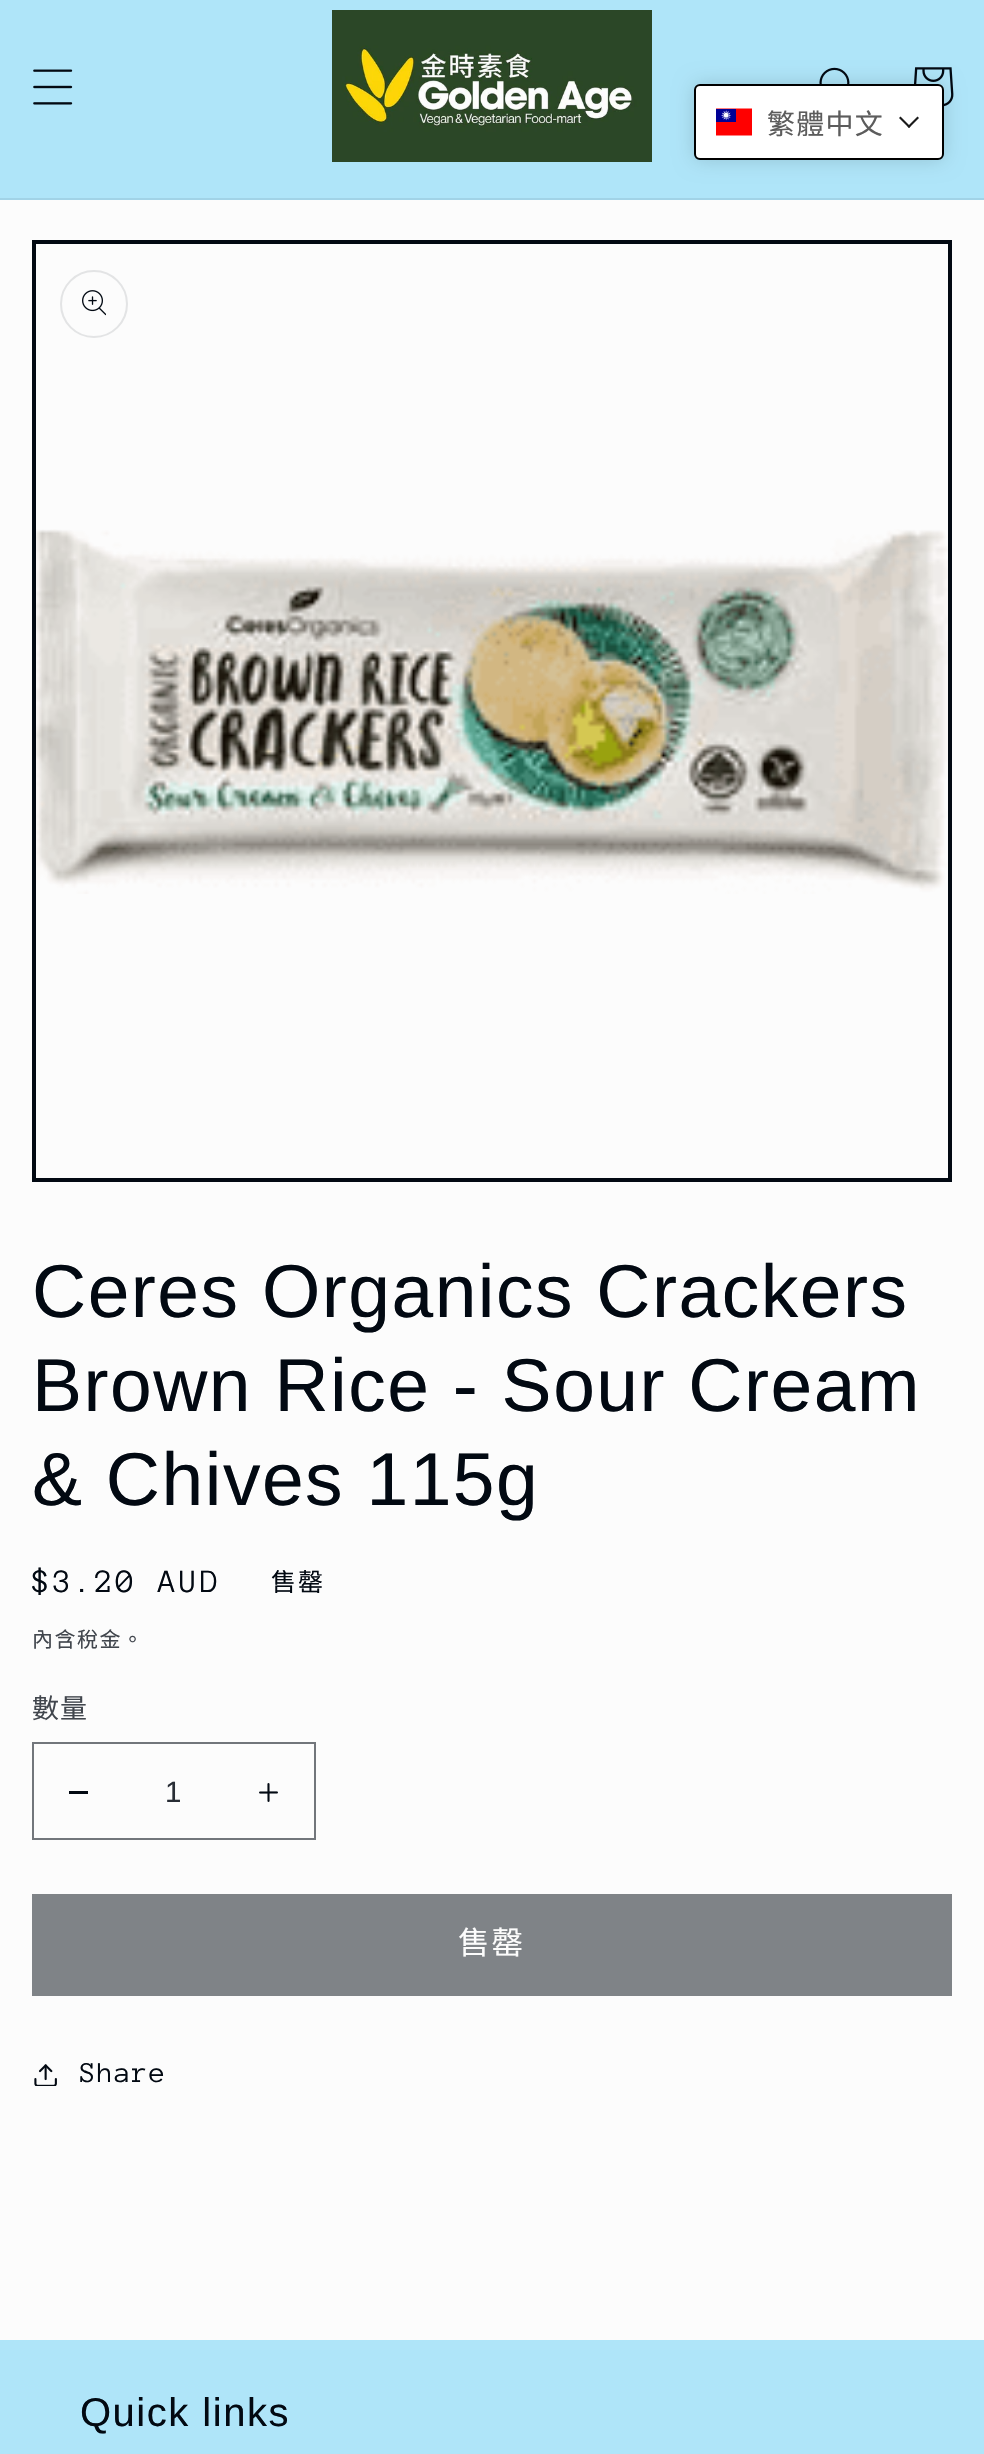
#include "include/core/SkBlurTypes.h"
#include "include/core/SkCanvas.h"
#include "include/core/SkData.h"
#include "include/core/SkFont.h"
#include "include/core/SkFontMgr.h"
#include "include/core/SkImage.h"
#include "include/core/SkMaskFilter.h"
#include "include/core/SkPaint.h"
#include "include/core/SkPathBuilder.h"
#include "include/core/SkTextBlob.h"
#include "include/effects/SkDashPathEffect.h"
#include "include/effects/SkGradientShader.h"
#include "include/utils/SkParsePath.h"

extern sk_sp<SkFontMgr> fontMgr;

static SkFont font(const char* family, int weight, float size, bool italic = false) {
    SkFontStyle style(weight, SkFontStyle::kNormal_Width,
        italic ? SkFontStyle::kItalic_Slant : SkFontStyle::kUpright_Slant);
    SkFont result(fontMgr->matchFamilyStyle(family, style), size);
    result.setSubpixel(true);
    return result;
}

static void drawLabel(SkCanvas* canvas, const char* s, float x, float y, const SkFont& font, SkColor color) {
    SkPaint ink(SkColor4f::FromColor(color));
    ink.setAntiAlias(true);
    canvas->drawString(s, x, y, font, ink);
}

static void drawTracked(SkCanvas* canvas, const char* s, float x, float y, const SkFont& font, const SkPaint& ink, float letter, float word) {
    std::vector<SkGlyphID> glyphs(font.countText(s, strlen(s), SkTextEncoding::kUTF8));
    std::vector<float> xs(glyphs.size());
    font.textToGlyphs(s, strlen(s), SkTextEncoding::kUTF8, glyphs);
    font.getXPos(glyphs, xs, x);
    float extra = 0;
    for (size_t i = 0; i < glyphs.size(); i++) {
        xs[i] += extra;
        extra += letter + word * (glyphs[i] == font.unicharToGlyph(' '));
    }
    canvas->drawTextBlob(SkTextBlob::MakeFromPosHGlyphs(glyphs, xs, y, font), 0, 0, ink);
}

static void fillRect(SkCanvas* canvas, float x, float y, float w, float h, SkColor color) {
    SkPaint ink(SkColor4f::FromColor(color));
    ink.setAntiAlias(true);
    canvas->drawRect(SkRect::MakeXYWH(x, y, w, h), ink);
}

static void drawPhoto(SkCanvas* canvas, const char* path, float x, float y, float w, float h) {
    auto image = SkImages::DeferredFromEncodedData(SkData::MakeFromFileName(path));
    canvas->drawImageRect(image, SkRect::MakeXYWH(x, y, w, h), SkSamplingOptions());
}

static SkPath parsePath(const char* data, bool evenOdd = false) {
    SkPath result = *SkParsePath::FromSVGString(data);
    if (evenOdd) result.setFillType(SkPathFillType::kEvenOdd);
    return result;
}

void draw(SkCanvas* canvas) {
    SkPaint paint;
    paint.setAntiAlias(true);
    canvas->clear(0xFFFCFCFC);
    fillRect(canvas, 0, 0, 984, 198, 0xFFAFE5F9);
    fillRect(canvas, 0, 198, 984, 2, 0xFFA1D3E7);
    drawPhoto(canvas, "assets/img1.png", 33, 69, 40, 36);
    drawPhoto(canvas, "assets/img2.png", 332, 10, 320, 152);
    drawPhoto(canvas, "assets/img3.png", 819, 67, 31, 17);
    drawPhoto(canvas, "assets/img4.png", 914, 67, 40, 40);
    paint.setColor(0x26000000);
    paint.setMaskFilter(SkMaskFilter::MakeBlur(kNormal_SkBlurStyle, 10));
    canvas->drawRoundRect(SkRect::MakeXYWH(694, 84, 250, 76), 6, 6, paint);
    paint.setMaskFilter(nullptr);
    paint.setColor(0xFFFFFFFF);
    canvas->drawRoundRect(SkRect::MakeXYWH(695, 85, 248, 74), 5, 5, paint);
    paint.setStroke(true);
    paint.setStrokeWidth(2);
    paint.setColor(0xFF000000);
    canvas->drawRoundRect(SkRect::MakeXYWH(695, 85, 248, 74), 5, 5, paint);
    drawPhoto(canvas, "assets/img5.png", 716, 108, 36, 28);
    SkFont font1 = font("Noto Sans CJK TC", 400, 28);
    paint.setStroke(false);
    paint.setColor(0xFF5C5C5C);
    drawTracked(canvas, "繁體中文", 767, 134, font1, paint, 1.25f, 0);
    paint.setColor(0xFF1A1A1A);
    canvas->drawPath(parsePath("M917.5 116.5L919 118L909 128L907.5 126.5Z"), paint);
    canvas->drawPath(parsePath("M900.5 116.5L910.5 126.5L909 128L899 118Z"), paint);
    paint.setStroke(true);
    paint.setStrokeWidth(4);
    paint.setColor(0xFF020912);
    canvas->drawRect(SkRect::MakeXYWH(34, 242, 916, 938), paint);
    drawPhoto(canvas, "assets/img6.png", 36, 529, 912, 365);
    paint.setStrokeWidth(2);
    paint.setColor(0xFFE3E4E5);
    canvas->drawCircle(94, 304, 33, paint);
    drawPhoto(canvas, "assets/img7.png", 82, 290, 24, 26);
    SkFont font2 = font("Arimo", 400, 75);
    paint.setStroke(false);
    paint.setColor(0xFF020912);
    drawTracked(canvas, "Ceres Organics Crackers", 32, 1317, font2, paint, 1.5f, 0);
    drawTracked(canvas, "Brown Rice - Sour Cream", 32, 1411, font2, paint, 1.5f, 0);
    drawTracked(canvas, "& Chives 115g", 32, 1505, font2, paint, 1.5f, 0);
    SkFont font3 = font("Anonymous Pro", 400, 33.5f);
    drawTracked(canvas, "$3.20 AUD", 32, 1592, font3, paint, 2.75f, 0);
    SkFont font4 = font("Noto Sans CJK TC", 400, 25);
    drawTracked(canvas, "售罄", 271, 1591, font4, paint, 2, 0);
    SkFont font5 = font("Noto Sans CJK TC", 400, 21);
    paint.setColor(0xFF41464D);
    drawTracked(canvas, "內含稅金。", 32, 1647, font5, paint, 1.5f, 0);
    SkFont font6 = font("Noto Sans CJK TC", 400, 27);
    drawTracked(canvas, "數量", 32, 1718, font6, paint, 1, 0);
    fillRect(canvas, 69, 1791, 19, 3, 0xFF020912);
    drawPhoto(canvas, "assets/img8.png", 259, 1783, 19, 19);
    paint.setStroke(true);
    paint.setColor(0xFF72767B);
    canvas->drawRect(SkRect::MakeXYWH(33, 1743, 282, 96), paint);
    SkFont font7 = font("Liberation Sans", 400, 29.5f);
    drawLabel(canvas, "1", 165, 1802, font7, 0xFF282D35);
    fillRect(canvas, 32, 1894, 920, 102, 0xFF7F8387);
    SkFont font8 = font("Noto Sans CJK TC", 400, 31.5f);
    paint.setStroke(false);
    paint.setColor(0xFFFCFCFC);
    drawTracked(canvas, "售罄", 458, 1954, font8, paint, 2, 0);
    drawPhoto(canvas, "assets/img9.png", 34, 2064, 23, 22);
    SkFont font9 = font("Anonymous Pro", 400, 29.5f);
    paint.setColor(0xFF020912);
    drawTracked(canvas, "Share", 80, 2082, font9, paint, 1.25f, 0);
    fillRect(canvas, 0, 2340, 984, 114, 0xFFAFE5F9);
    SkFont font10 = font("Arimo", 400, 40);
    drawTracked(canvas, "Quick links", 80, 2426, font10, paint, 1.5f, 0);
}
